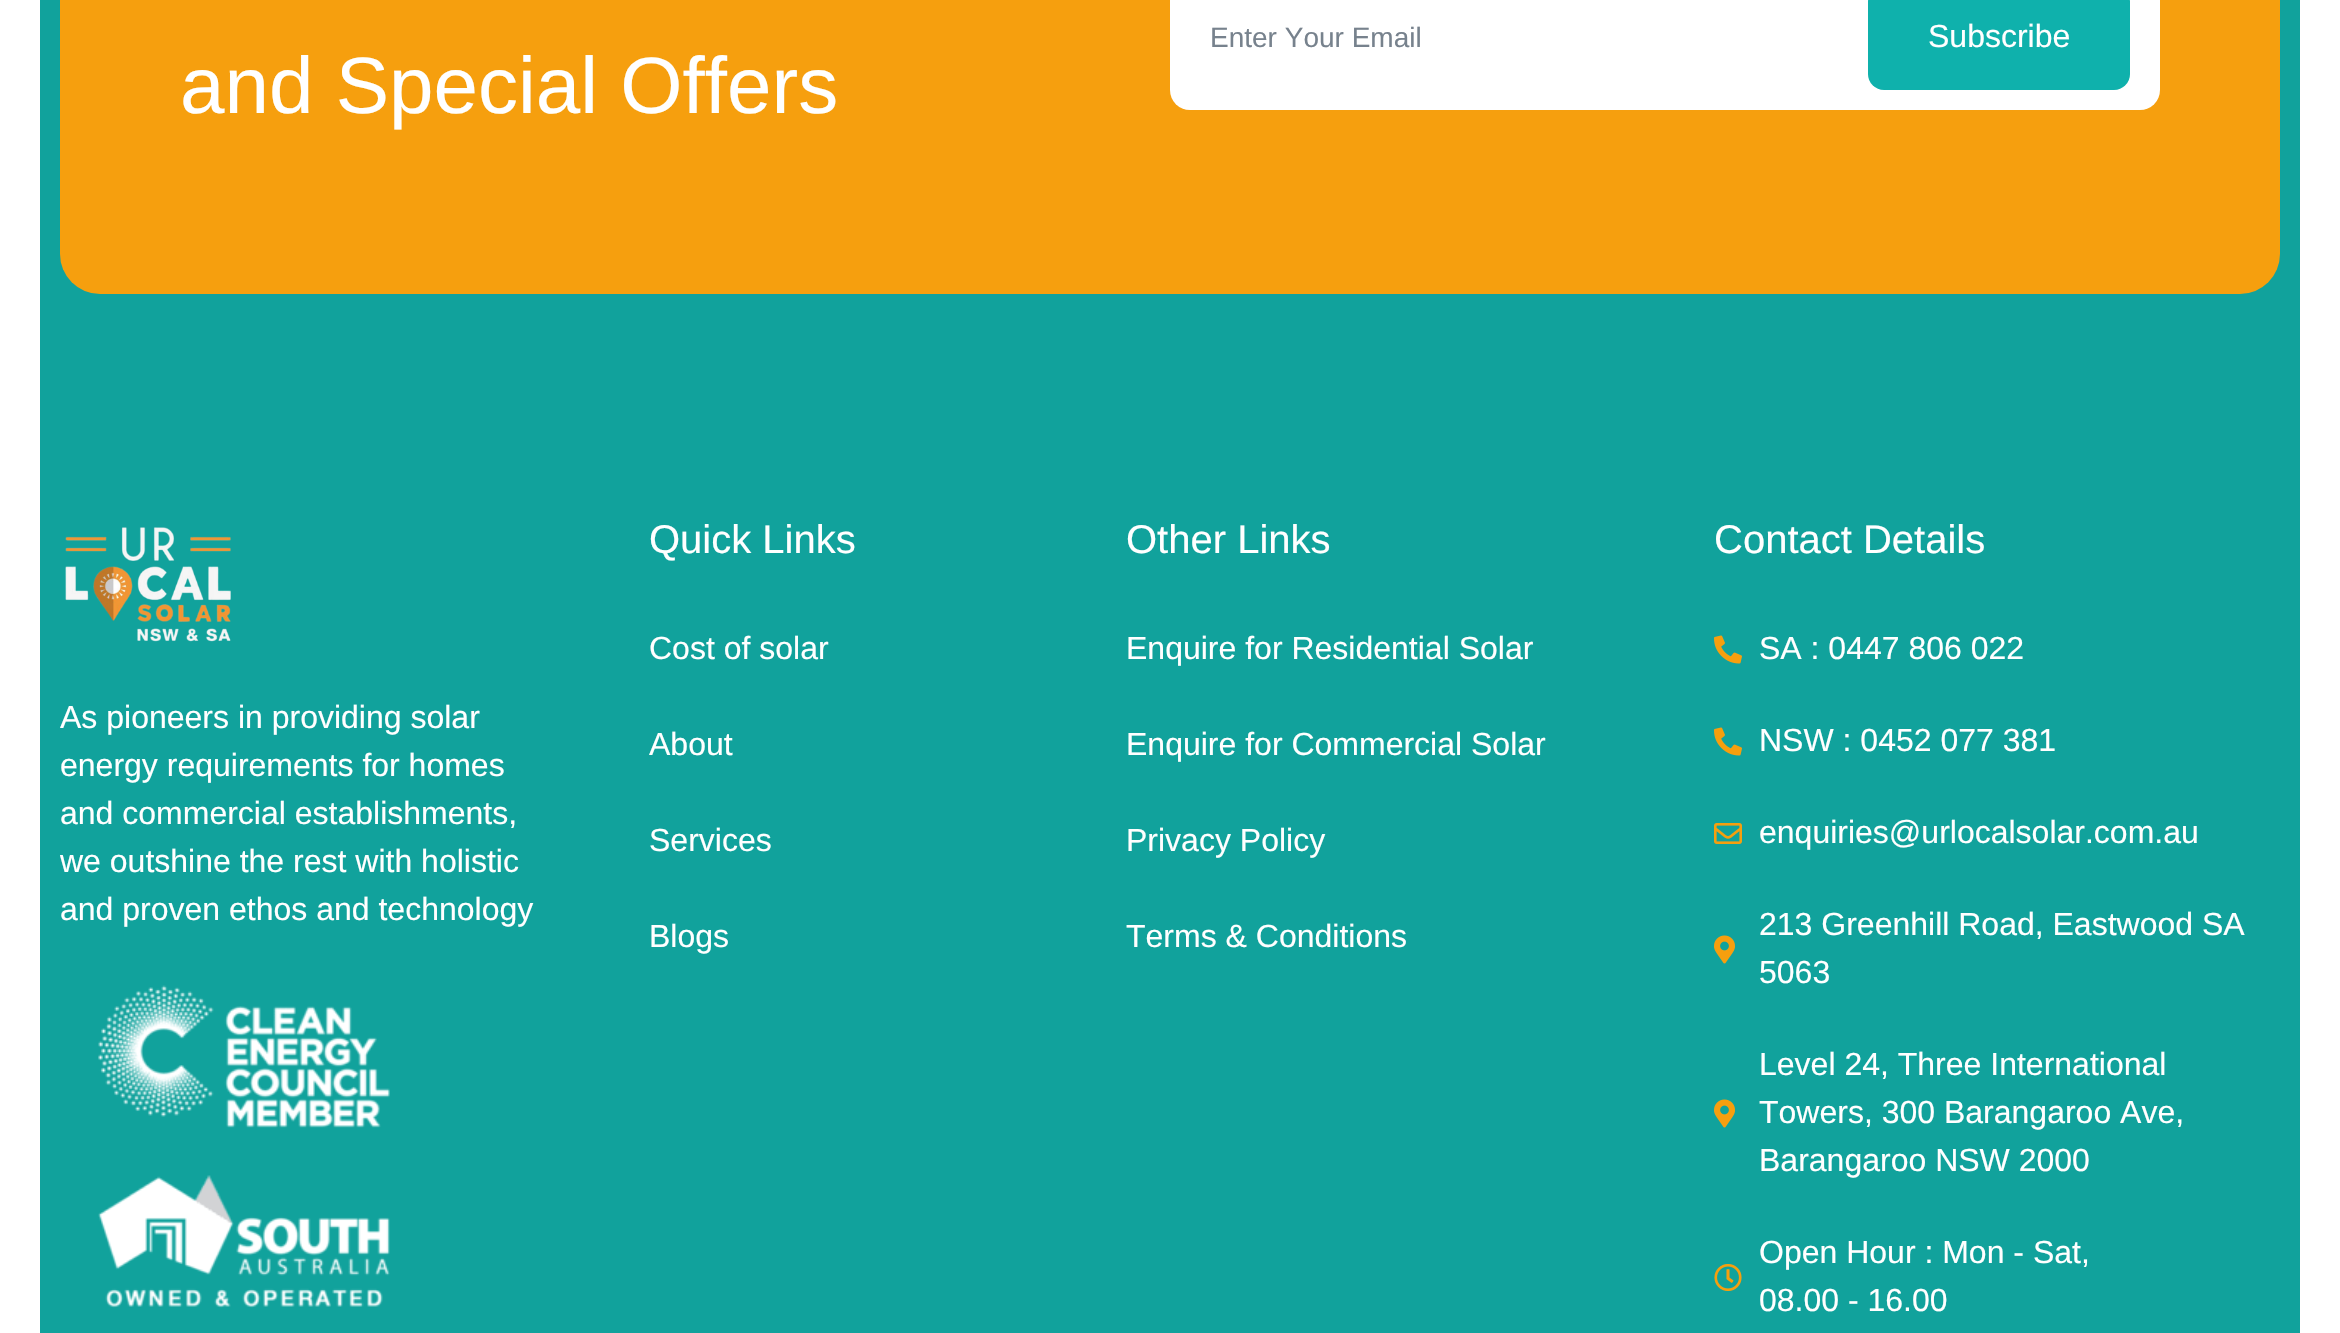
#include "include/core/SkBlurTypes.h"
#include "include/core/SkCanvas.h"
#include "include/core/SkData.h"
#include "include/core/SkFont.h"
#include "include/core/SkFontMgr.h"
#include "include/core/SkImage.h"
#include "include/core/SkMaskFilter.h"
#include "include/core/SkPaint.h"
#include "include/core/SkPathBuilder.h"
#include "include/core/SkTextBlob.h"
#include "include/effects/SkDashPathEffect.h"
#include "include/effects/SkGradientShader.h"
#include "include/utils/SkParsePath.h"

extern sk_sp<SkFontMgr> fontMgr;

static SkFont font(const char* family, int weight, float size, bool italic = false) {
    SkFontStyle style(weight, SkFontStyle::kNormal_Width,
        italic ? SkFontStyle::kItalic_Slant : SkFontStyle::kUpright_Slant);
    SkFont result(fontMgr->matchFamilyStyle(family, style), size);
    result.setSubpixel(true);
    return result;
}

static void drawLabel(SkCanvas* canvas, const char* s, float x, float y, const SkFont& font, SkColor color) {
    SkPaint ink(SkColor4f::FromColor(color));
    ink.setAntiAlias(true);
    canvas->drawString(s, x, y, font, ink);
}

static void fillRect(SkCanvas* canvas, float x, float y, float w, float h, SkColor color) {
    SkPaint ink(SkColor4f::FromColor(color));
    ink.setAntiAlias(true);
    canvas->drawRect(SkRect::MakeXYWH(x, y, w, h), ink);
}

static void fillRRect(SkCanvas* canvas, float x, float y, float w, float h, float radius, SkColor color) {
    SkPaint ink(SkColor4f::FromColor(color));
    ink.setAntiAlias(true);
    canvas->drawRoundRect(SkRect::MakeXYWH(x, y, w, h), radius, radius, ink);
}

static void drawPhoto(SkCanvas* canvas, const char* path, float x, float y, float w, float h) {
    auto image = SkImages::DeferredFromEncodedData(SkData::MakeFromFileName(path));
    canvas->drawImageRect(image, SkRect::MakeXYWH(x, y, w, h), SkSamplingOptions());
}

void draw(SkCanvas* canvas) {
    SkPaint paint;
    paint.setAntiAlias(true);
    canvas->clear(0xFFFFFFFF);
    fillRect(canvas, 40, 0, 2260, 1333, 0xFF11A29C);
    fillRRect(canvas, 60, -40, 2220, 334, 40, 0xFFF69F0E);
    fillRRect(canvas, 1170, -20, 990, 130, 20, 0xFFFFFFFF);
    SkFont font1 = font("Liberation Sans", 400, 28);
    drawLabel(canvas, "Enter Your Email", 1210, 47, font1, 0xFF77828D);
    fillRRect(canvas, 1868, -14, 262, 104, 16, 0xFF0FB1AC);
    SkFont font2 = font("Liberation Sans", 400, 32);
    drawLabel(canvas, "Subscribe", 1928, 47, font2, 0xFFFFFFFF);
    SkFont font3 = font("Liberation Sans", 400, 80);
    drawLabel(canvas, "and Special Offers", 180, 113, font3, 0xFFFFFFFF);
    drawPhoto(canvas, "assets/img1.png", 65, 527, 166, 115);
    drawLabel(canvas, "As pioneers in providing solar", 60, 728, font2, 0xFFFFFFFF);
    drawLabel(canvas, "energy requirements for homes", 60, 776, font2, 0xFFFFFFFF);
    drawLabel(canvas, "and commercial establishments,", 60, 824, font2, 0xFFFFFFFF);
    drawLabel(canvas, "we outshine the rest with holistic", 60, 872, font2, 0xFFFFFFFF);
    drawLabel(canvas, "and proven ethos and technology", 60, 920, font2, 0xFFFFFFFF);
    drawPhoto(canvas, "assets/img2.png", 98, 985, 292, 323);
    SkFont font4 = font("Liberation Sans", 400, 40);
    drawLabel(canvas, "Quick Links", 649, 553, font4, 0xFFFFFFFF);
    drawLabel(canvas, "Cost of solar", 649, 659, font2, 0xFFFFFFFF);
    drawLabel(canvas, "About", 649, 755, font2, 0xFFFFFFFF);
    drawLabel(canvas, "Services", 649, 851, font2, 0xFFFFFFFF);
    drawLabel(canvas, "Blogs", 649, 947, font2, 0xFFFFFFFF);
    drawLabel(canvas, "Other Links", 1126, 553, font4, 0xFFFFFFFF);
    drawLabel(canvas, "Enquire for Residential Solar", 1126, 659, font2, 0xFFFFFFFF);
    drawLabel(canvas, "Enquire for Commercial Solar", 1126, 755, font2, 0xFFFFFFFF);
    drawLabel(canvas, "Privacy Policy", 1126, 851, font2, 0xFFFFFFFF);
    drawLabel(canvas, "Terms & Conditions", 1126, 947, font2, 0xFFFFFFFF);
    drawLabel(canvas, "Contact Details", 1714, 553, font4, 0xFFFFFFFF);
    drawPhoto(canvas, "assets/img3.png", 1714, 635, 28, 29);
    drawLabel(canvas, "SA : 0447 806 022", 1759, 659, font2, 0xFFFFFFFF);
    drawPhoto(canvas, "assets/img3.png", 1714, 727, 28, 29);
    drawLabel(canvas, "NSW : 0452 077 381", 1759, 751, font2, 0xFFFFFFFF);
    drawPhoto(canvas, "assets/img4.png", 1714, 823, 28, 21);
    drawLabel(canvas, "enquiries@urlocalsolar.com.au", 1759, 843, font2, 0xFFFFFFFF);
    drawPhoto(canvas, "assets/img5.png", 1714, 935, 21, 29);
    drawLabel(canvas, "213 Greenhill Road, Eastwood SA", 1759, 935, font2, 0xFFFFFFFF);
    drawLabel(canvas, "5063", 1759, 983, font2, 0xFFFFFFFF);
    drawPhoto(canvas, "assets/img5.png", 1714, 1099, 21, 29);
    drawLabel(canvas, "Level 24, Three International", 1759, 1075, font2, 0xFFFFFFFF);
    drawLabel(canvas, "Towers, 300 Barangaroo Ave,", 1759, 1123, font2, 0xFFFFFFFF);
    drawLabel(canvas, "Barangaroo NSW 2000", 1759, 1171, font2, 0xFFFFFFFF);
    drawPhoto(canvas, "assets/img6.png", 1714, 1264, 28, 27);
    drawLabel(canvas, "Open Hour : Mon - Sat,", 1759, 1263, font2, 0xFFFFFFFF);
    drawLabel(canvas, "08.00 - 16.00", 1759, 1311, font2, 0xFFFFFFFF);
}
